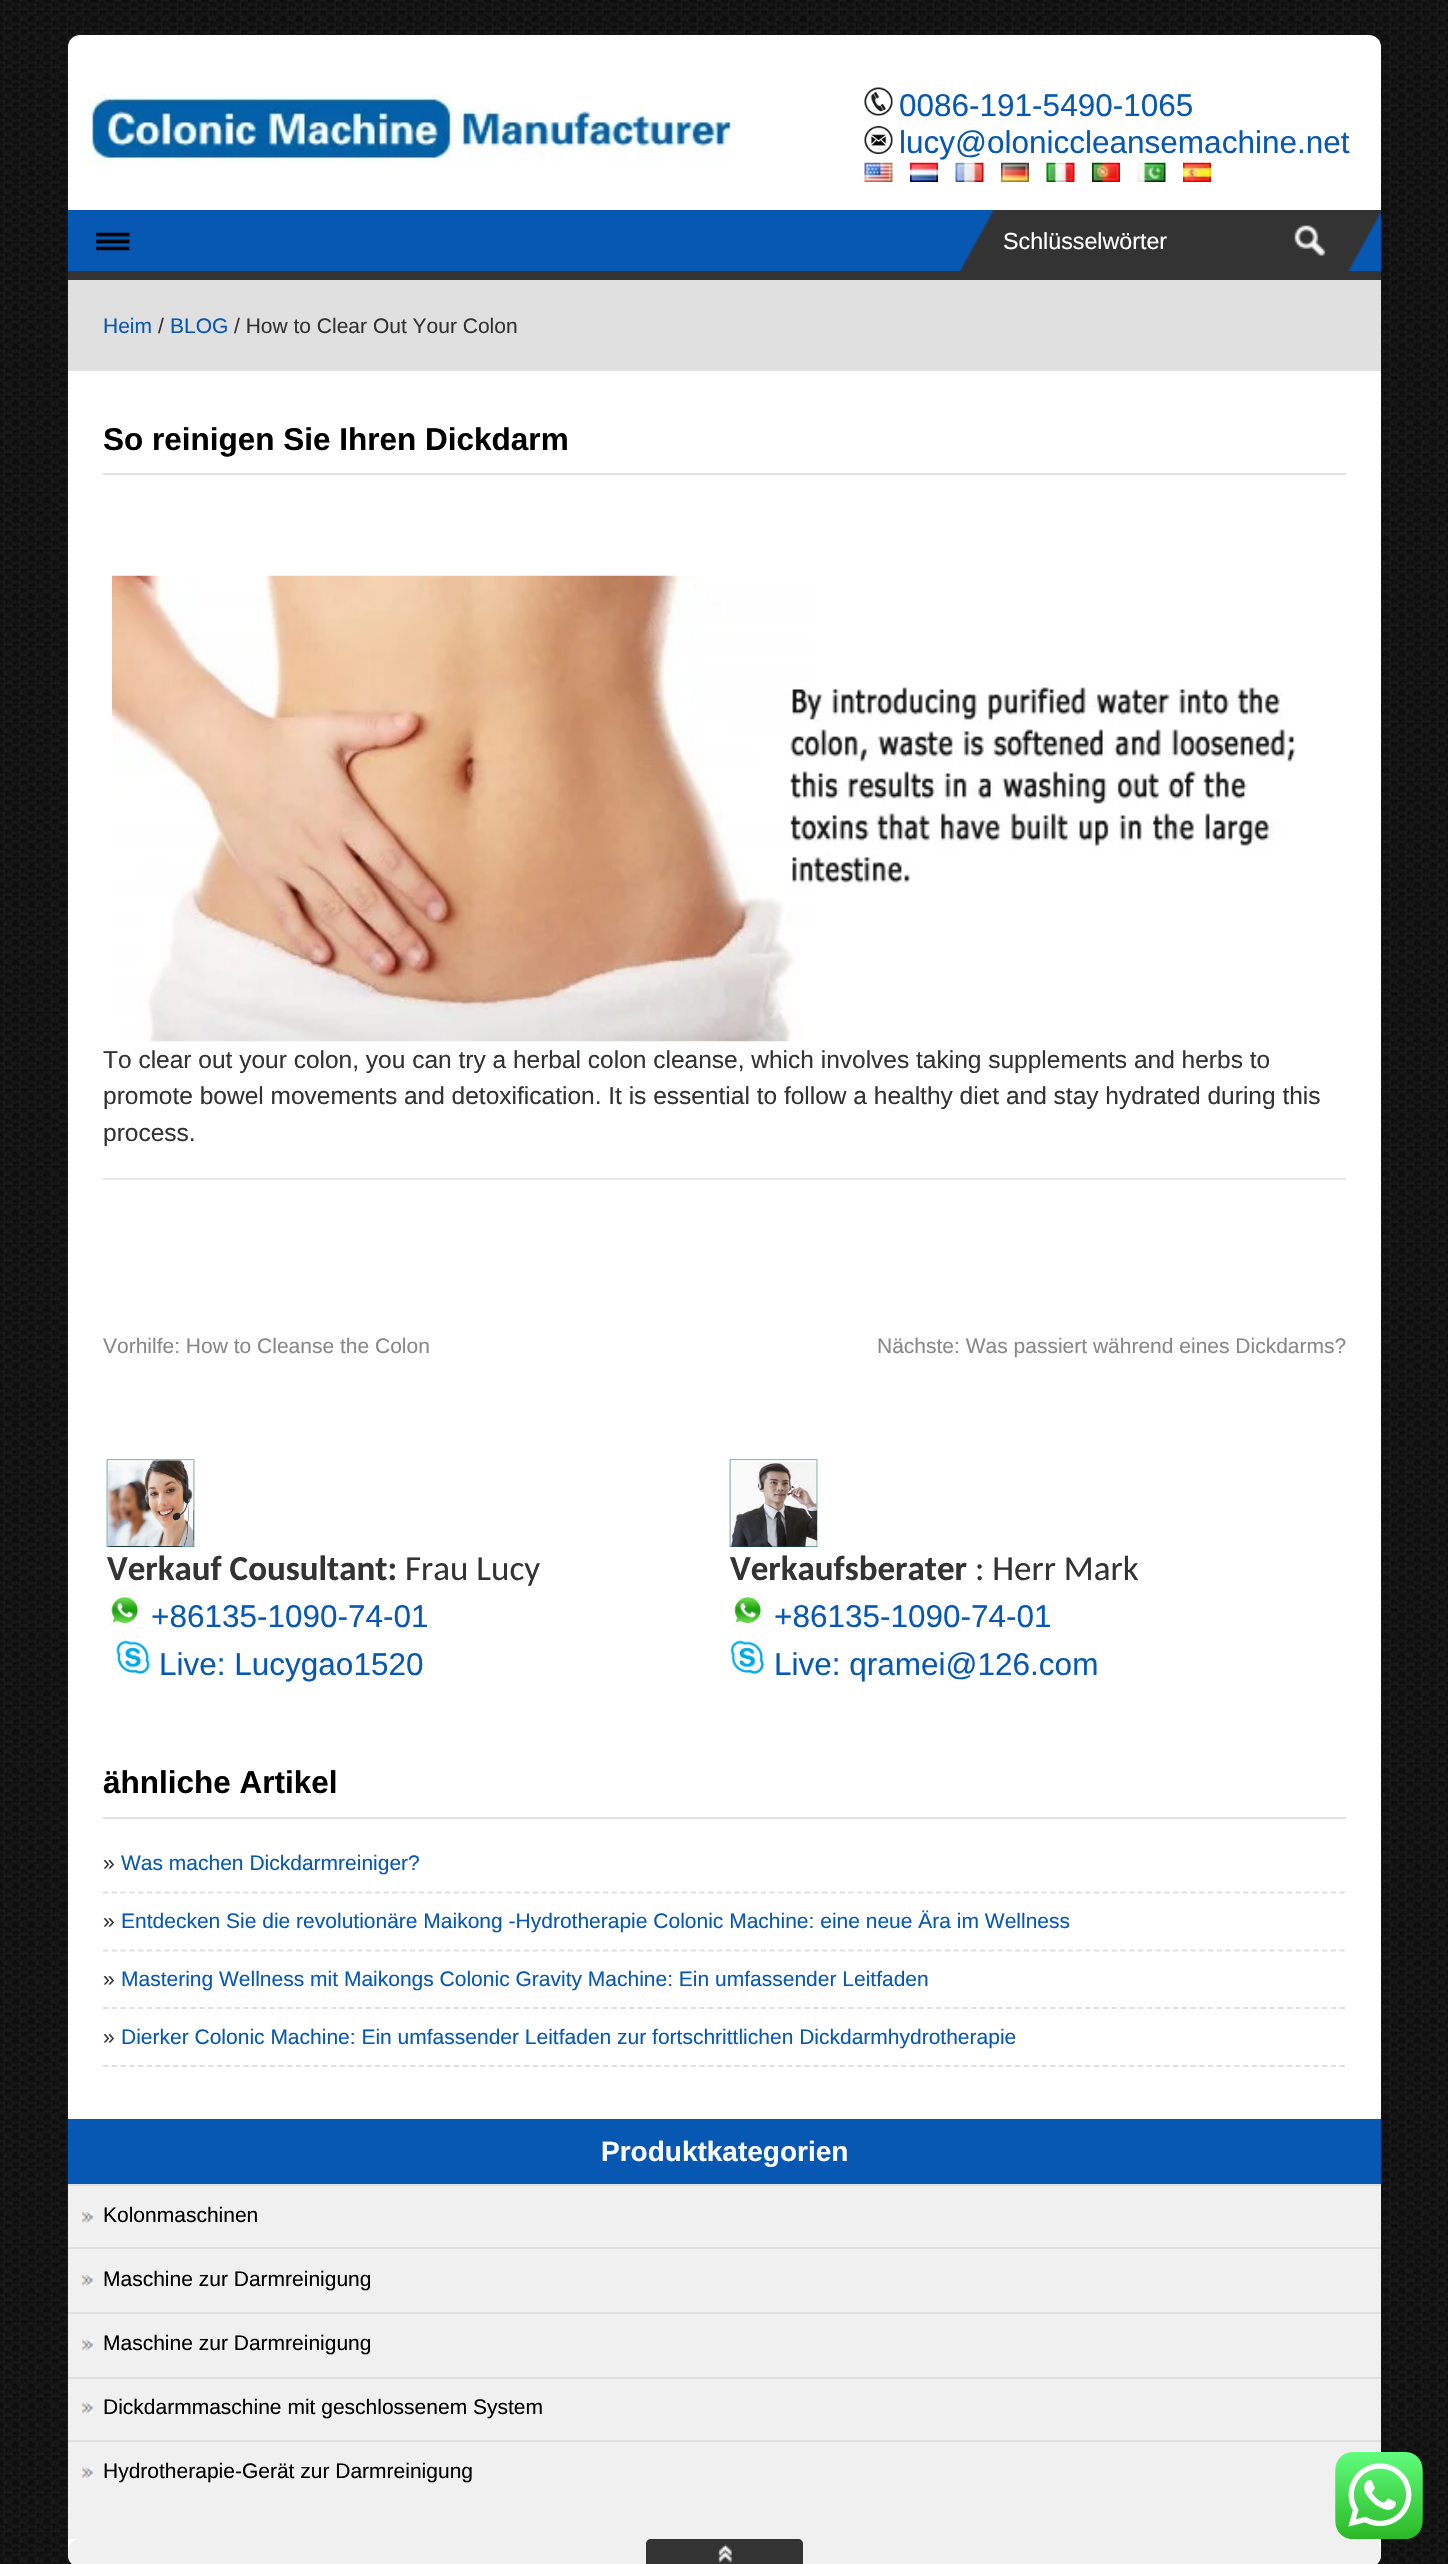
#include "include/core/SkBlurTypes.h"
#include "include/core/SkCanvas.h"
#include "include/core/SkData.h"
#include "include/core/SkFont.h"
#include "include/core/SkFontMgr.h"
#include "include/core/SkImage.h"
#include "include/core/SkMaskFilter.h"
#include "include/core/SkPaint.h"
#include "include/core/SkPathBuilder.h"
#include "include/core/SkTextBlob.h"
#include "include/effects/SkDashPathEffect.h"
#include "include/effects/SkGradientShader.h"
#include "include/utils/SkParsePath.h"

extern sk_sp<SkFontMgr> fontMgr;

static SkFont font(const char* family, int weight, float size, bool italic = false) {
    SkFontStyle style(weight, SkFontStyle::kNormal_Width,
        italic ? SkFontStyle::kItalic_Slant : SkFontStyle::kUpright_Slant);
    SkFont result(fontMgr->matchFamilyStyle(family, style), size);
    result.setSubpixel(true);
    return result;
}

static void drawLabel(SkCanvas* canvas, const char* s, float x, float y, const SkFont& font, SkColor color) {
    SkPaint ink(SkColor4f::FromColor(color));
    ink.setAntiAlias(true);
    canvas->drawString(s, x, y, font, ink);
}

static void fillRect(SkCanvas* canvas, float x, float y, float w, float h, SkColor color) {
    SkPaint ink(SkColor4f::FromColor(color));
    ink.setAntiAlias(true);
    canvas->drawRect(SkRect::MakeXYWH(x, y, w, h), ink);
}

static void fillRRect(SkCanvas* canvas, float x, float y, float w, float h, float radius, SkColor color) {
    SkPaint ink(SkColor4f::FromColor(color));
    ink.setAntiAlias(true);
    canvas->drawRoundRect(SkRect::MakeXYWH(x, y, w, h), radius, radius, ink);
}

static void drawPhoto(SkCanvas* canvas, const char* path, float x, float y, float w, float h) {
    auto image = SkImages::DeferredFromEncodedData(SkData::MakeFromFileName(path));
    canvas->drawImageRect(image, SkRect::MakeXYWH(x, y, w, h), SkSamplingOptions());
}

static SkPath parsePath(const char* data, bool evenOdd = false) {
    SkPath result = *SkParsePath::FromSVGString(data);
    if (evenOdd) result.setFillType(SkPathFillType::kEvenOdd);
    return result;
}

void draw(SkCanvas* canvas) {
    SkPaint paint;
    paint.setAntiAlias(true);
    canvas->clear(0xFFFFFFFF);
    drawPhoto(canvas, "assets/img1.png", 0, 0, 1448, 2564);
    fillRRect(canvas, 68, 35, 1313, 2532, 12, 0xFFFFFFFF);
    drawPhoto(canvas, "assets/img2.png", 86, 94, 646, 71);
    drawPhoto(canvas, "assets/img3.png", 864, 87, 29, 29);
    SkFont font1 = font("Liberation Sans", 400, 31.5f);
    drawLabel(canvas, "0086-191-5490-1065", 899, 116, font1, 0xFF0758B3);
    drawPhoto(canvas, "assets/img4.png", 864, 126, 29, 28);
    drawLabel(canvas, "lucy@oloniccleansemachine.net", 899, 153, font1, 0xFF0758B3);
    drawPhoto(canvas, "assets/img5.png", 864, 162, 29, 20);
    drawPhoto(canvas, "assets/img6.png", 910, 162, 28, 20);
    drawPhoto(canvas, "assets/img7.png", 955, 162, 29, 20);
    drawPhoto(canvas, "assets/img8.png", 1001, 162, 28, 20);
    drawPhoto(canvas, "assets/img9.png", 1046, 162, 29, 20);
    drawPhoto(canvas, "assets/img10.png", 1092, 162, 28, 20);
    drawPhoto(canvas, "assets/img11.png", 1137, 162, 29, 20);
    drawPhoto(canvas, "assets/img12.png", 1183, 162, 28, 20);
    fillRect(canvas, 68, 210, 1313, 61, 0xFF0758B3);
    drawPhoto(canvas, "assets/img13.png", 96, 232, 34, 19);
    fillRect(canvas, 68, 271, 1313, 9, 0xFF333333);
    drawPhoto(canvas, "assets/img14.png", 960, 210, 421, 61);
    SkFont font2 = font("Liberation Sans", 400, 23.25f);
    drawLabel(canvas, "Schlüsselwörter", 1003, 249, font2, 0xFFFFFFFF);
    drawPhoto(canvas, "assets/img15.png", 1294, 225, 32, 31);
    fillRect(canvas, 68, 280, 1313, 91, 0xFFE0E0E0);
    SkFont font3 = font("Liberation Sans", 400, 21);
    drawLabel(canvas, "Heim", 103, 333, font3, 0xFF0758B3);
    drawLabel(canvas, "/", 158, 333, font3, 0xFF333333);
    drawLabel(canvas, "BLOG", 170, 333, font3, 0xFF0758B3);
    drawLabel(canvas, "/ How to Clear Out Your Colon", 234, 333, font3, 0xFF333333);
    fillRect(canvas, 103, 473, 1243, 2, 0xFFE0E0E0);
    SkFont font4 = font("Liberation Sans", 700, 31.5f);
    drawLabel(canvas, "So reinigen Sie Ihren Dickdarm", 103, 450, font4, 0xFF000000);
    drawPhoto(canvas, "assets/img16.png", 112, 575, 1184, 467);
    SkFont font5 = font("Liberation Sans", 400, 24.5f);
    drawLabel(canvas, "To clear out your colon, you can try a herbal colon cleanse, which involves taking supplements and herbs to", 103, 1068, font5, 0xFF333333);
    drawLabel(canvas, "promote bowel movements and detoxification. It is essential to follow a healthy diet and stay hydrated during this", 103, 1104, font5, 0xFF333333);
    drawLabel(canvas, "process.", 103, 1141, font5, 0xFF333333);
    fillRect(canvas, 103, 1178, 1243, 2, 0xFFE7E7E7);
    drawLabel(canvas, "Vorhilfe: How to Cleanse the Colon", 103, 1353, font3, 0xFF888888);
    drawLabel(canvas, "Nächste: Was passiert während eines Dickdarms?", 877, 1353, font3, 0xFF888888);
    drawPhoto(canvas, "assets/img17.png", 106, 1459, 89, 88);
    drawPhoto(canvas, "assets/img18.png", 729, 1459, 89, 88);
    SkFont font6 = font("Carlito", 700, 35);
    drawLabel(canvas, "Verkauf Cousultant:", 107, 1580, font6, 0xFF333333);
    SkFont font7 = font("Carlito", 400, 35);
    drawLabel(canvas, "Frau Lucy", 405, 1580, font7, 0xFF333333);
    drawLabel(canvas, "Verkaufsberater", 730, 1580, font6, 0xFF333333);
    drawLabel(canvas, ": Herr Mark", 975, 1580, font7, 0xFF333333);
    drawPhoto(canvas, "assets/img19.png", 109, 1594, 32, 33);
    drawLabel(canvas, "+86135-1090-74-01", 151, 1627, font1, 0xFF0758B3);
    drawPhoto(canvas, "assets/img19.png", 732, 1594, 32, 33);
    drawLabel(canvas, "+86135-1090-74-01", 774, 1627, font1, 0xFF0758B3);
    drawPhoto(canvas, "assets/img20.png", 116, 1640, 34, 34);
    drawLabel(canvas, "Live: Lucygao1520", 159, 1675, font1, 0xFF0758B3);
    drawPhoto(canvas, "assets/img21.png", 730, 1640, 34, 34);
    drawLabel(canvas, "Live: qramei@126.com", 774, 1675, font1, 0xFF0758B3);
    fillRect(canvas, 103, 1817, 1243, 2, 0xFFE0E0E0);
    drawLabel(canvas, "ähnliche Artikel", 103, 1793, font4, 0xFF000000);
    paint.setStroke(true);
    paint.setStrokeWidth(1.8f);
    paint.setColor(0xFFE0E0E0);
    paint.setPathEffect(SkDashPathEffect::Make({{5.25f, 3.52f}}, 0));
    canvas->drawPath(parsePath("M103 1892.5H1346"), paint);
    paint.setPathEffect(nullptr);
    drawLabel(canvas, "»", 103, 1870, font3, 0xFF333333);
    drawLabel(canvas, "Was machen Dickdarmreiniger?", 121, 1870, font3, 0xFF0758B3);
    paint.setPathEffect(SkDashPathEffect::Make({{5.25f, 3.52f}}, 0));
    canvas->drawPath(parsePath("M103 1950.5H1346"), paint);
    paint.setPathEffect(nullptr);
    drawLabel(canvas, "»", 103, 1928, font3, 0xFF333333);
    drawLabel(canvas, "Entdecken Sie die revolutionäre Maikong -Hydrotherapie Colonic Machine: eine neue Ära im Wellness", 121, 1928, font3, 0xFF0758B3);
    paint.setPathEffect(SkDashPathEffect::Make({{5.25f, 3.52f}}, 0));
    canvas->drawPath(parsePath("M103 2008H1346"), paint);
    paint.setPathEffect(nullptr);
    drawLabel(canvas, "»", 103, 1986, font3, 0xFF333333);
    drawLabel(canvas, "Mastering Wellness mit Maikongs Colonic Gravity Machine: Ein umfassender Leitfaden", 121, 1986, font3, 0xFF0758B3);
    paint.setPathEffect(SkDashPathEffect::Make({{5.25f, 3.52f}}, 0));
    canvas->drawPath(parsePath("M103 2066H1346"), paint);
    paint.setPathEffect(nullptr);
    drawLabel(canvas, "»", 103, 2044, font3, 0xFF333333);
    drawLabel(canvas, "Dierker Colonic Machine: Ein umfassender Leitfaden zur fortschrittlichen Dickdarmhydrotherapie", 121, 2044, font3, 0xFF0758B3);
    fillRect(canvas, 68, 2186, 1313, 353, 0xFFF0F0F0);
    fillRect(canvas, 68, 2119, 1313, 65, 0xFF0758B3);
    SkFont font8 = font("Liberation Sans", 700, 28);
    drawLabel(canvas, "Produktkategorien", 601, 2161, font8, 0xFFFFFFFF);
    fillRect(canvas, 68, 2184, 1313, 2, 0xFFDFDFDF);
    drawPhoto(canvas, "assets/img22.png", 82, 2212, 11, 11);
    drawLabel(canvas, "Kolonmaschinen", 103, 2222, font3, 0xFF000000);
    fillRect(canvas, 68, 2247, 1313, 2, 0xFFDFDFDF);
    drawPhoto(canvas, "assets/img22.png", 82, 2275, 11, 11);
    drawLabel(canvas, "Maschine zur Darmreinigung", 103, 2286, font3, 0xFF000000);
    fillRect(canvas, 68, 2312, 1313, 2, 0xFFDFDFDF);
    drawPhoto(canvas, "assets/img23.png", 82, 2339, 11, 12);
    drawLabel(canvas, "Maschine zur Darmreinigung", 103, 2350, font3, 0xFF000000);
    fillRect(canvas, 68, 2377, 1313, 2, 0xFFDFDFDF);
    drawPhoto(canvas, "assets/img23.png", 82, 2402, 11, 12);
    drawLabel(canvas, "Dickdarmmaschine mit geschlossenem System", 103, 2414, font3, 0xFF000000);
    fillRect(canvas, 68, 2440, 1313, 2, 0xFFDFDFDF);
    drawPhoto(canvas, "assets/img24.png", 82, 2467, 11, 11);
    drawLabel(canvas, "Hydrotherapie-Gerät zur Darmreinigung", 103, 2478, font3, 0xFF000000);
    drawPhoto(canvas, "assets/img25.png", 1335, 2452, 88, 87);
    fillRRect(canvas, 68, 2539, 1313, 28, 12, 0xFFF0F0F0);
    paint.setStroke(false);
    paint.setColor(0xFF333333);
    canvas->drawPath(parsePath("M651 2539H798C801 2539 803 2541 803 2544V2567H646V2544C646 2541 648 2539 651 2539Z"), paint);
    drawPhoto(canvas, "assets/img26.png", 717, 2544, 15, 19);
}
